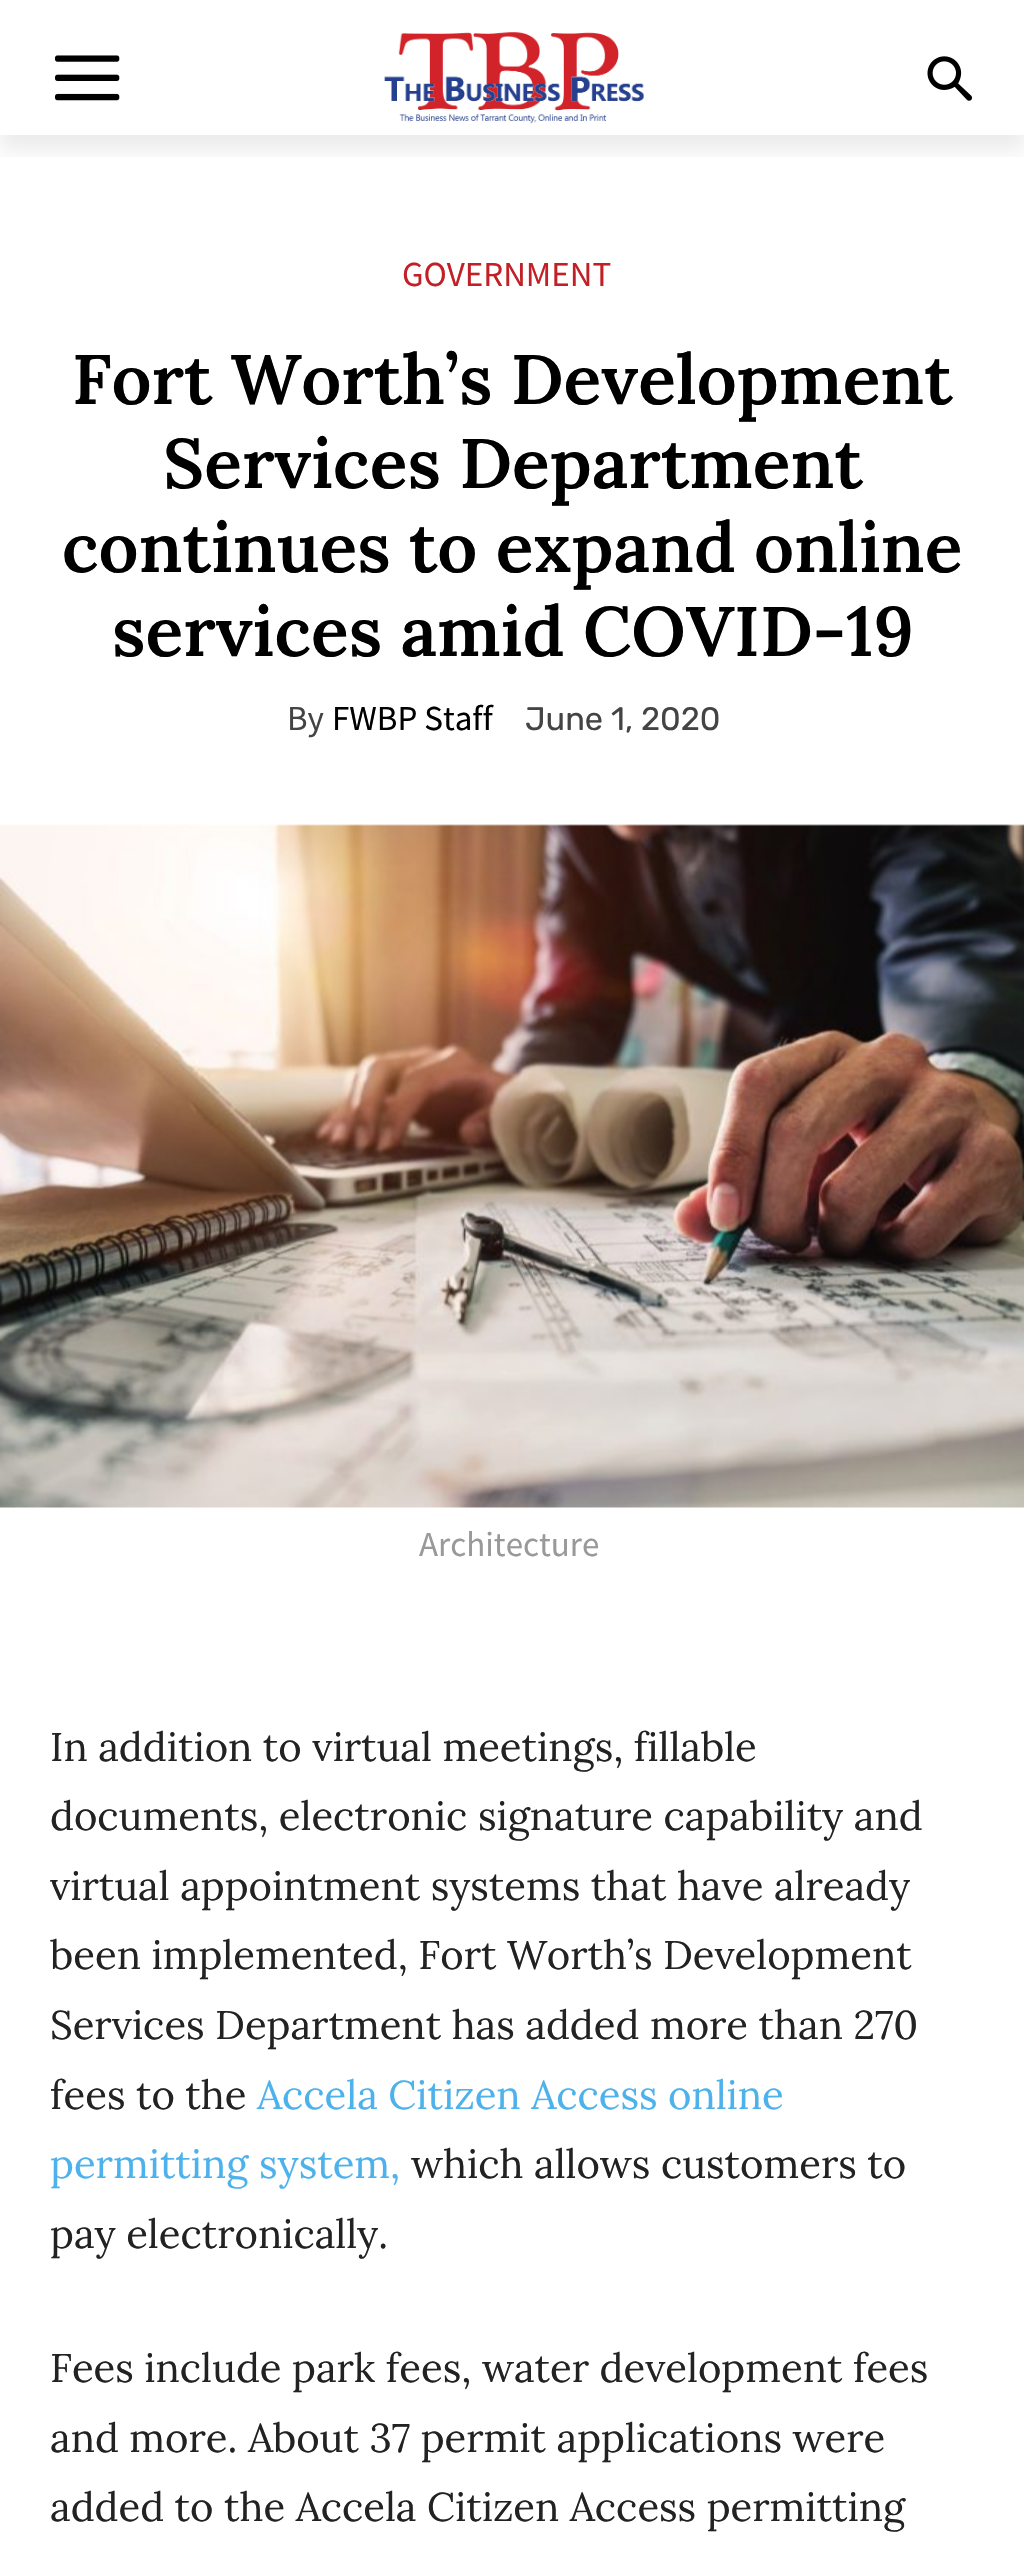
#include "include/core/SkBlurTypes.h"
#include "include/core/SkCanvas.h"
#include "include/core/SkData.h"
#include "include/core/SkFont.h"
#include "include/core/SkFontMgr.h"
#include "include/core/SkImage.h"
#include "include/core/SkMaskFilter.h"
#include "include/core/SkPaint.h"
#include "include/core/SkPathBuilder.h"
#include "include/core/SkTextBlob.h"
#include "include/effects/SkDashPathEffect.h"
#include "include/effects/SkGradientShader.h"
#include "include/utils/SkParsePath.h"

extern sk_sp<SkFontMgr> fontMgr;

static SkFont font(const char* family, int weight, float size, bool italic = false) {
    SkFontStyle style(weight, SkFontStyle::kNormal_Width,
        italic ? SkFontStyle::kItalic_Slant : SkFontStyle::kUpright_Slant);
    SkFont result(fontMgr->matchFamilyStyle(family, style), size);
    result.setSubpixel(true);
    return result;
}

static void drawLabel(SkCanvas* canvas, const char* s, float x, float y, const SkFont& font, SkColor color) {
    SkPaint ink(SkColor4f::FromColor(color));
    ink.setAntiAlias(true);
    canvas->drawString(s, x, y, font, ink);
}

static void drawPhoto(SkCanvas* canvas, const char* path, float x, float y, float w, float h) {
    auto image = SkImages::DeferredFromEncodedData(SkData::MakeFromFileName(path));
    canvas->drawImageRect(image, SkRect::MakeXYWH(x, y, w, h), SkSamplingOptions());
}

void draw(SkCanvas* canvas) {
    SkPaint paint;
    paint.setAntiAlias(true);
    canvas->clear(0xFFFFFFFF);
    drawPhoto(canvas, "assets/img1.png", 55, 55, 65, 46);
    drawPhoto(canvas, "assets/img2.png", 384, 32, 260, 92);
    drawPhoto(canvas, "assets/img3.png", 927, 56, 46, 45);
    canvas->save();
    canvas->clipRect(SkRect::MakeXYWH(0, 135, 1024, 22));
    paint.setColor(0x14000000);
    paint.setMaskFilter(SkMaskFilter::MakeBlur(kNormal_SkBlurStyle, 10));
    canvas->drawRect(SkRect::MakeXYWH(0, 15, 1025, 135), paint);
    paint.setMaskFilter(nullptr);
    canvas->restore();
    SkFont font1 = font("Source Sans Pro", 400, 35);
    drawLabel(canvas, "GOVERNMENT", 402, 286, font1, 0xFFC22026);
    SkFont font2 = font("Lora", 600, 70);
    drawLabel(canvas, "Fort Worth’s Development", 72, 404, font2, 0xFF000000);
    drawLabel(canvas, "Services Department", 163, 488, font2, 0xFF000000);
    drawLabel(canvas, "continues to expand online", 62, 572, font2, 0xFF000000);
    drawLabel(canvas, "services amid COVID-19", 112, 656, font2, 0xFF000000);
    drawLabel(canvas, "By", 287, 730, font1, 0xFF444444);
    drawLabel(canvas, "FWBP Staff", 332, 730, font1, 0xFF000000);
    SkFont font3 = font("Rubik", 400, 32.5f);
    drawLabel(canvas, "June 1, 2020", 525, 730, font3, 0xFF444444);
    drawPhoto(canvas, "assets/img4.png", 0, 824, 1024, 684);
    drawLabel(canvas, "Architecture", 419, 1556, font1, 0xFF999999);
    SkFont font4 = font("Lora", 400, 40);
    drawLabel(canvas, "In addition to virtual meetings, fillable", 50, 1761, font4, 0xFF222222);
    drawLabel(canvas, "documents, electronic signature capability and", 50, 1830, font4, 0xFF222222);
    drawLabel(canvas, "virtual appointment systems that have already", 50, 1900, font4, 0xFF222222);
    drawLabel(canvas, "been implemented, Fort Worth’s Development", 50, 1969, font4, 0xFF222222);
    drawLabel(canvas, "Services Department has added more than 270", 50, 2039, font4, 0xFF222222);
    drawLabel(canvas, "fees to the", 50, 2109, font4, 0xFF222222);
    drawLabel(canvas, "Accela Citizen Access online", 257, 2109, font4, 0xFF4DB2EC);
    drawLabel(canvas, "permitting system,", 50, 2178, font4, 0xFF4DB2EC);
    drawLabel(canvas, "which allows customers to", 411, 2178, font4, 0xFF222222);
    drawLabel(canvas, "pay electronically.", 50, 2248, font4, 0xFF222222);
    drawLabel(canvas, "Fees include park fees, water development fees", 50, 2382, font4, 0xFF222222);
    drawLabel(canvas, "and more. About 37 permit applications were", 50, 2452, font4, 0xFF222222);
    drawLabel(canvas, "added to the Accela Citizen Access permitting", 50, 2521, font4, 0xFF222222);
}
